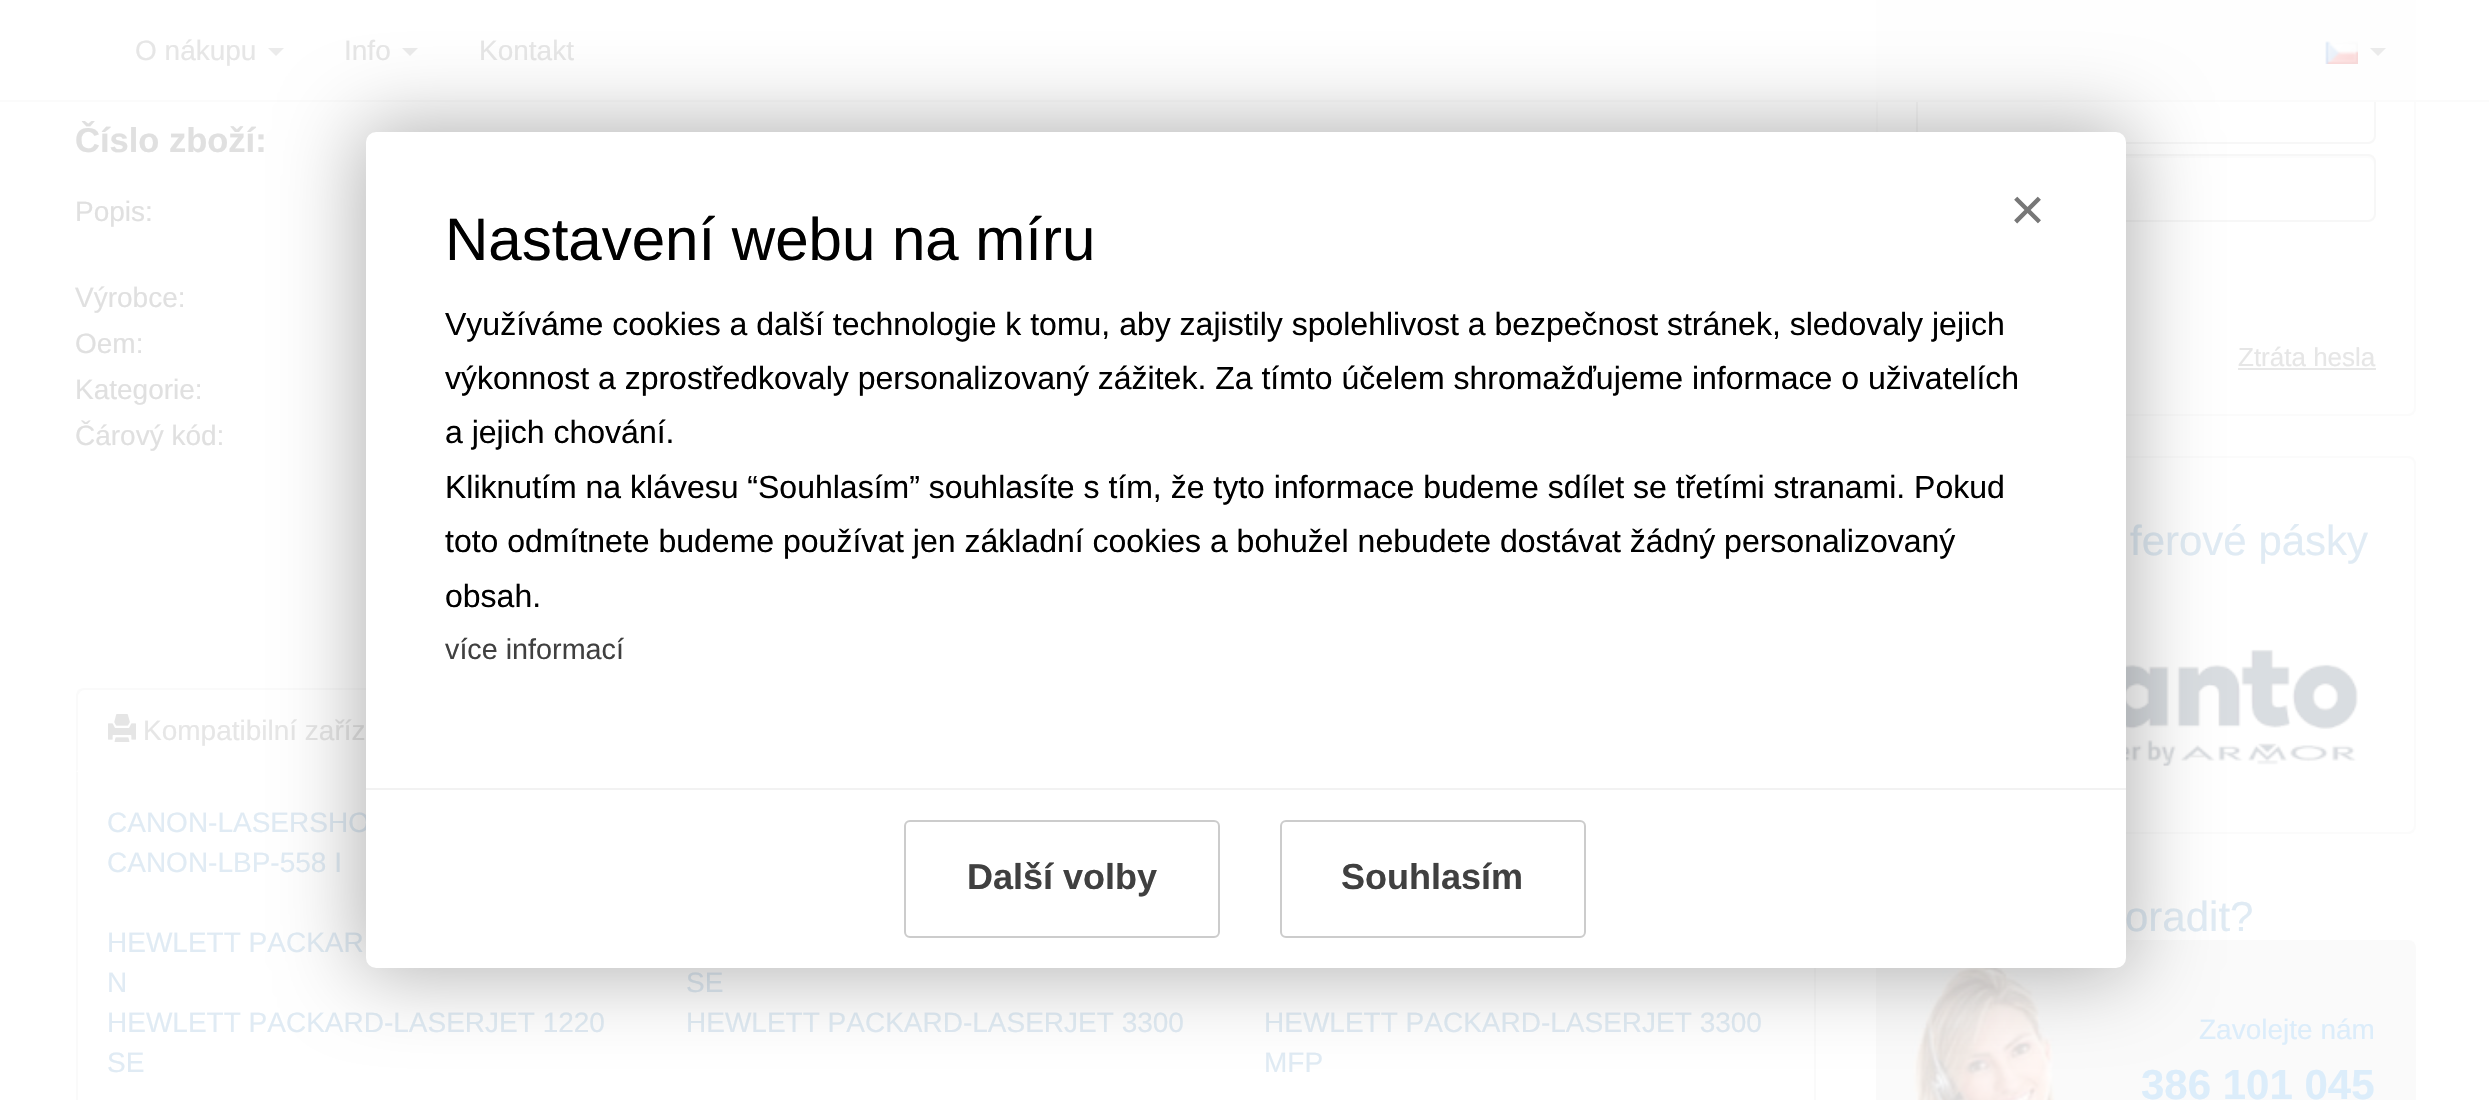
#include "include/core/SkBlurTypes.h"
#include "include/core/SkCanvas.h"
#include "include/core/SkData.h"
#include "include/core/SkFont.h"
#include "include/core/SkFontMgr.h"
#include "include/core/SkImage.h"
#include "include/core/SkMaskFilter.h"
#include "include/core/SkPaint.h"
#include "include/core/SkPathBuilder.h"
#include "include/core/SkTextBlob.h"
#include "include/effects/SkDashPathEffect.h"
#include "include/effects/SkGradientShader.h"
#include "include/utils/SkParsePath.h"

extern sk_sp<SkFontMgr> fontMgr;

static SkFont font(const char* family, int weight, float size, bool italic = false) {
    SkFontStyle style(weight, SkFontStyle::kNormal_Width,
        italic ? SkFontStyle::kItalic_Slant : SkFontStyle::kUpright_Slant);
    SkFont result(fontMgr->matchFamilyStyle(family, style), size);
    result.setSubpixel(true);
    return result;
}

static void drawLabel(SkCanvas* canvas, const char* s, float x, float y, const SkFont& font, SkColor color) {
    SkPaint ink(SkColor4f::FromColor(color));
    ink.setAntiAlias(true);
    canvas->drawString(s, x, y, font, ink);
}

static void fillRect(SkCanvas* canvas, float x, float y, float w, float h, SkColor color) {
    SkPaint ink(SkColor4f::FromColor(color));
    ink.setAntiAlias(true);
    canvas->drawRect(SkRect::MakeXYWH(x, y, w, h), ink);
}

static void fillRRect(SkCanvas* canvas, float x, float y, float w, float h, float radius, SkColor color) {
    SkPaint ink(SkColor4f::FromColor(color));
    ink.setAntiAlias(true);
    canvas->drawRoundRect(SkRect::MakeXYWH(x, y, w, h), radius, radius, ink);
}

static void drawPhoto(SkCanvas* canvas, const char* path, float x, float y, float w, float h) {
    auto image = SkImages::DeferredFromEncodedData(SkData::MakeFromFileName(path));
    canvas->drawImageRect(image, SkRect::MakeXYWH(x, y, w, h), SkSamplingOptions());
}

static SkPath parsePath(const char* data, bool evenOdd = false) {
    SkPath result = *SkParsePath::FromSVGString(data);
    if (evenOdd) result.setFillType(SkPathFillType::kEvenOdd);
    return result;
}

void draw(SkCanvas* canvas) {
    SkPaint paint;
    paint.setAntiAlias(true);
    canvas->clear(0xFFFFFFFF);
    paint.setStroke(true);
    paint.setStrokeWidth(2);
    paint.setColor(0xFFFBFBFB);
    canvas->drawRoundRect(SkRect::MakeXYWH(1877, -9, 538, 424), 7, 7, paint);
    paint.setColor(0xFFF7F7F7);
    canvas->drawRoundRect(SkRect::MakeXYWH(1917, 77, 458, 66), 7, 7, paint);
    fillRect(canvas, 1876, 0, 540, 100, 0xFFFEFEFE);
    fillRect(canvas, 0, 100, 2489, 2, 0xFFFBFBFB);
    SkFont font1 = font("Liberation Sans", 400, 28);
    drawLabel(canvas, "O nákupu", 135, 60, font1, 0xFFE6E6E6);
    paint.setStroke(false);
    paint.setColor(0xFFEBEBEB);
    canvas->drawPath(parsePath("M268 48H284L276 56Z"), paint);
    drawLabel(canvas, "Info", 344, 60, font1, 0xFFE6E6E6);
    canvas->drawPath(parsePath("M402 48H418L410 56Z"), paint);
    drawLabel(canvas, "Kontakt", 479, 60, font1, 0xFFE6E6E6);
    drawPhoto(canvas, "assets/img1.png", 2325, 41, 33, 23);
    canvas->drawPath(parsePath("M2370 48H2386L2378 56Z"), paint);
    SkFont font2 = font("Liberation Sans", 700, 34.5f);
    drawLabel(canvas, "Číslo zboží:", 75, 152, font2, 0xFFE0E0E0);
    drawLabel(canvas, "Popis:", 75, 221, font1, 0xFFE0E0E0);
    drawLabel(canvas, "Výrobce:", 75, 307, font1, 0xFFE0E0E0);
    drawLabel(canvas, "Oem:", 75, 353, font1, 0xFFE0E0E0);
    drawLabel(canvas, "Kategorie:", 75, 399, font1, 0xFFE0E0E0);
    drawLabel(canvas, "Čárový kód:", 75, 445, font1, 0xFFE0E0E0);
    paint.setColor(0xFFFAFAFA);
    canvas->drawPath(parsePath("M84 688C82 688 80 689 78 690L80 692C81 691 82 690 84 690H428C430 690 431 691 432 692L434 690C432 689 430 688 428 688Z"), paint);
    canvas->drawPath(parsePath("M76 772L78 770V695L80 692L78 690C77 692 76 694 76 696Z"), paint);
    drawPhoto(canvas, "assets/img2.png", 108, 714, 28, 28);
    drawLabel(canvas, "Kompatibilní zaříz", 143, 740, font1, 0xFFE6E6E6);
    fillRect(canvas, 1814, 968, 2, 132, 0xFFFAFAFA);
    fillRect(canvas, 76, 772, 2, 328, 0xFFFAFAFA);
    drawLabel(canvas, "CANON-LASERSHO", 107, 832, font1, 0xFFE0EBF4);
    drawLabel(canvas, "CANON-LBP-558 I", 107, 872, font1, 0xFFE0EBF4);
    drawLabel(canvas, "HEWLETT PACKAR", 107, 952, font1, 0xFFE0EBF4);
    drawLabel(canvas, "N", 107, 992, font1, 0xFFE0EBF4);
    drawLabel(canvas, "SE", 686, 992, font1, 0xFFE0EBF4);
    drawLabel(canvas, "HEWLETT PACKARD-LASERJET 1220", 107, 1032, font1, 0xFFE0EBF4);
    drawLabel(canvas, "SE", 107, 1072, font1, 0xFFE0EBF4);
    drawLabel(canvas, "HEWLETT PACKARD-LASERJET 3300", 686, 1032, font1, 0xFFE0EBF4);
    drawLabel(canvas, "HEWLETT PACKARD-LASERJET 3300", 1264, 1032, font1, 0xFFE0EBF4);
    drawLabel(canvas, "MFP", 1264, 1072, font1, 0xFFE0EBF4);
    paint.setColor(0xFFFCFCFC);
    canvas->drawPath(parsePath("M1924 158H2368C2371 158 2374 161 2374 164V162C2374 159 2371 156 2368 156H1924C1921 156 1918 159 1918 162V164C1918 161 1921 158 1924 158Z"), paint);
    paint.setStroke(true);
    paint.setColor(0xFFF7F7F7);
    canvas->drawRoundRect(SkRect::MakeXYWH(1917, 155, 458, 66), 7, 7, paint);
    SkFont font3 = font("Liberation Sans", 400, 26);
    drawLabel(canvas, "Ztráta hesla", 2238, 366, font3, 0xFFE6E6E6);
    fillRect(canvas, 2238, 368, 138, 2, 0xFFE8E8E8);
    paint.setColor(0xFFFBFBFB);
    canvas->drawRoundRect(SkRect::MakeXYWH(1877, 457, 538, 376), 7, 7, paint);
    SkFont font4 = font("Liberation Sans", 400, 42);
    drawLabel(canvas, "ferové pásky", 2130, 555, font4, 0xFFE0EBF4);
    drawPhoto(canvas, "assets/img3.png", 2126, 610, 250, 184);
    drawLabel(canvas, "oradit?", 2125, 931, font4, 0xFFE0EBF4);
    fillRRect(canvas, 1876, 940, 540, 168, 8, 0xFFFAFAFA);
    drawPhoto(canvas, "assets/img4.png", 1912, 968, 143, 132);
    drawLabel(canvas, "Zavolejte nám", 2199, 1039, font1, 0xFFDCEDFA);
    SkFont font5 = font("Liberation Sans", 700, 42);
    drawLabel(canvas, "386 101 045", 2141, 1099, font5, 0xFFDCEDFA);
    paint.setStroke(false);
    paint.setColor(0x4D000000);
    paint.setMaskFilter(SkMaskFilter::MakeBlur(kNormal_SkBlurStyle, 40));
    canvas->drawRoundRect(SkRect::MakeXYWH(360, 126, 1772, 848), 16, 16, paint);
    paint.setMaskFilter(nullptr);
    fillRRect(canvas, 366, 132, 1760, 836, 10, 0xFFFFFFFF);
    SkFont font6 = font("Liberation Sans", 400, 60);
    drawLabel(canvas, "×", 2010, 230, font6, 0xFF777777);
    drawLabel(canvas, "Nastavení webu na míru", 445, 260, font6, 0xFF000000);
    SkFont font7 = font("Liberation Sans", 400, 32);
    drawLabel(canvas, "Využíváme cookies a další technologie k tomu, aby zajistily spolehlivost a bezpečnost stránek, sledovaly jejich", 445, 335, font7, 0xFF000000);
    drawLabel(canvas, "výkonnost a zprostředkovaly personalizovaný zážitek. Za tímto účelem shromažďujeme informace o uživatelích", 445, 389, font7, 0xFF000000);
    drawLabel(canvas, "a jejich chování.", 445, 443, font7, 0xFF000000);
    drawLabel(canvas, "Kliknutím na klávesu “Souhlasím” souhlasíte s tím, že tyto informace budeme sdílet se třetími stranami. Pokud", 445, 498, font7, 0xFF000000);
    drawLabel(canvas, "toto odmítnete budeme používat jen základní cookies a bohužel nebudete dostávat žádný personalizovaný", 445, 552, font7, 0xFF000000);
    drawLabel(canvas, "obsah.", 445, 607, font7, 0xFF000000);
    SkFont font8 = font("Liberation Sans", 400, 28.75f);
    drawLabel(canvas, "více informací", 445, 659, font8, 0xFF404040);
    fillRect(canvas, 366, 788, 1760, 2, 0xFFF2F2F2);
    paint.setStroke(true);
    paint.setColor(0xFFCCCCCC);
    canvas->drawRoundRect(SkRect::MakeXYWH(905, 821, 314, 116), 5, 5, paint);
    SkFont font9 = font("Liberation Sans", 700, 36);
    drawLabel(canvas, "Další volby", 967, 889, font9, 0xFF404040);
    canvas->drawRoundRect(SkRect::MakeXYWH(1281, 821, 304, 116), 5, 5, paint);
    drawLabel(canvas, "Souhlasím", 1341, 889, font9, 0xFF404040);
}
